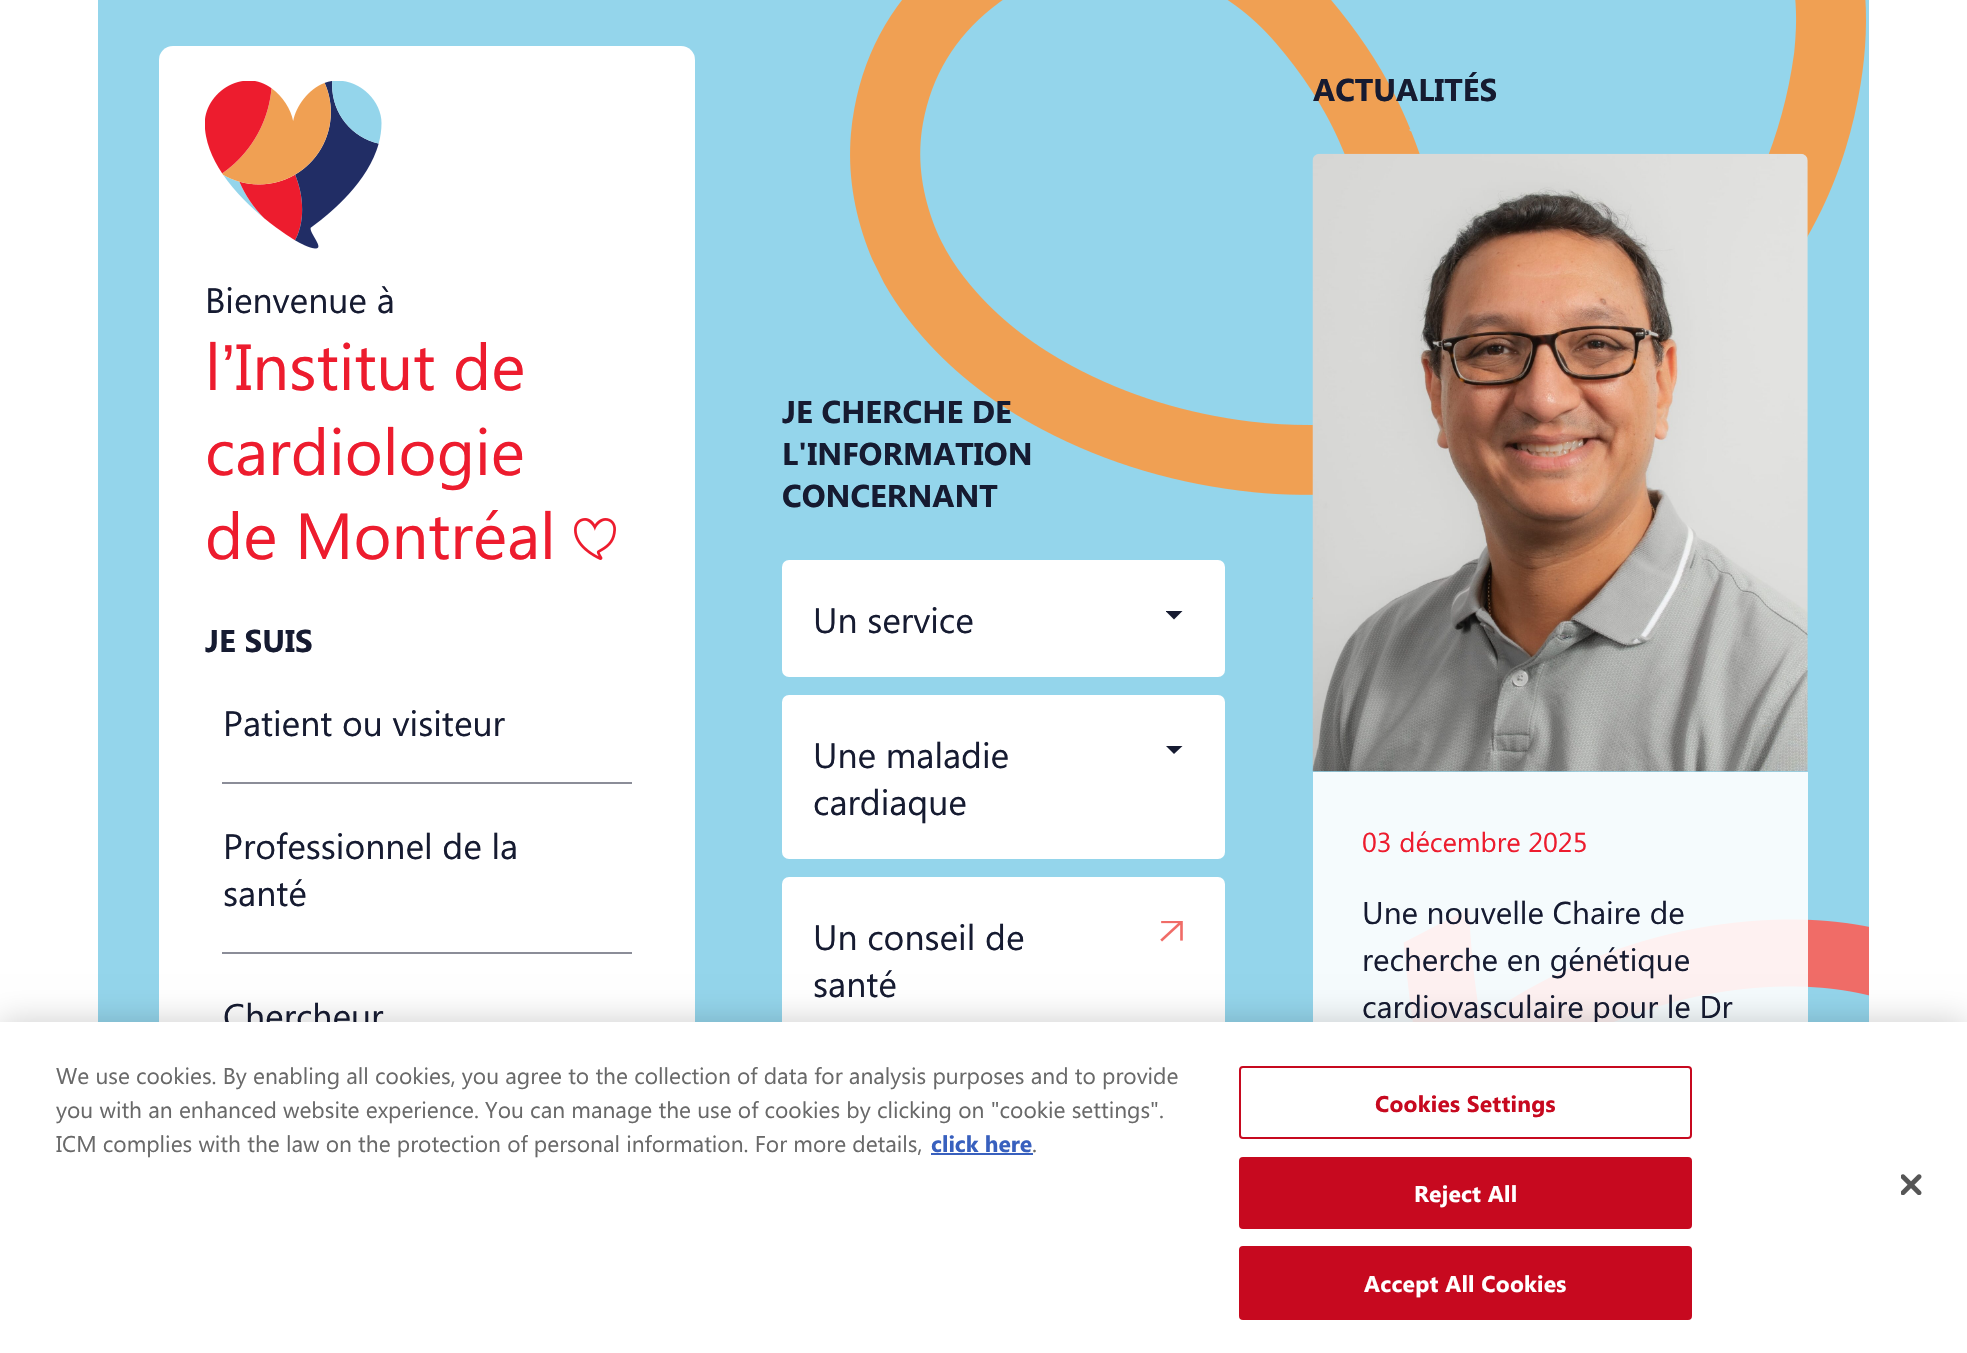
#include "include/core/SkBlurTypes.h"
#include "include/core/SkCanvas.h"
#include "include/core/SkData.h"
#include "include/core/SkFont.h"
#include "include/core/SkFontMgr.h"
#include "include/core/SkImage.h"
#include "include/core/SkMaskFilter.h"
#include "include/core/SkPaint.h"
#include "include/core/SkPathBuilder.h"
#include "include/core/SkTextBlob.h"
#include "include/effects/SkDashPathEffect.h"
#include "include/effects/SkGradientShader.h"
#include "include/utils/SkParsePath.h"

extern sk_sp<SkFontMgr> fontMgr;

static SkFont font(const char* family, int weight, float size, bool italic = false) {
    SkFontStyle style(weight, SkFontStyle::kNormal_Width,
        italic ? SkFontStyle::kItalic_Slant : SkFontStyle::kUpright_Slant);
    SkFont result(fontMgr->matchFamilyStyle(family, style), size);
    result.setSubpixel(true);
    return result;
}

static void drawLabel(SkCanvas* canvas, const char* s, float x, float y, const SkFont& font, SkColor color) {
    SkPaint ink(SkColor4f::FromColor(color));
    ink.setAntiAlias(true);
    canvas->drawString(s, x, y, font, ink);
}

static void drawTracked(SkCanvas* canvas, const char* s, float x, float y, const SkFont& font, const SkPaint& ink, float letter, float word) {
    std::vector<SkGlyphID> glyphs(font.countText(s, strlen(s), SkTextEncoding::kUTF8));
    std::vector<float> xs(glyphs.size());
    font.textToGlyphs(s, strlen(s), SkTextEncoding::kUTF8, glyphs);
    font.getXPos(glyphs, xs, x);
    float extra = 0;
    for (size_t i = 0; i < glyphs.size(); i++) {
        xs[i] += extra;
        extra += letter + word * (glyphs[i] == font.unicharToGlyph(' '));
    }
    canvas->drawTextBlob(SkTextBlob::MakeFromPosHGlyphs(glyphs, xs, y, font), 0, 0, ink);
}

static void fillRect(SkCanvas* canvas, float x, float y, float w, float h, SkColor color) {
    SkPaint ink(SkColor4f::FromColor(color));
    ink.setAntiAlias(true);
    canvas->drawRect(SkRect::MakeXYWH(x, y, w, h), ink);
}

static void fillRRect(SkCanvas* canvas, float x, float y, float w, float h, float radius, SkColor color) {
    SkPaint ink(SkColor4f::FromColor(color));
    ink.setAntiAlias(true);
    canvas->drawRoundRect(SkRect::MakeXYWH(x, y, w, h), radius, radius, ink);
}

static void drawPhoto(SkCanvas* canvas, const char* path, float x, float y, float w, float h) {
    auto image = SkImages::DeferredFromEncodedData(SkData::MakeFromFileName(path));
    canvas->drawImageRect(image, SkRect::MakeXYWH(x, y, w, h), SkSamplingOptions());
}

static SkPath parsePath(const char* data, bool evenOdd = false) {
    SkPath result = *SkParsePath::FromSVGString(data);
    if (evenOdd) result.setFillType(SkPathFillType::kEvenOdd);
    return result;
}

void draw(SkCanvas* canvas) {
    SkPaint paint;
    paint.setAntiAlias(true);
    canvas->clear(0xFFFFFFFF);
    fillRect(canvas, 98, 0, 1771, 1022, 0xFF94D5EB);
    drawPhoto(canvas, "assets/img1.png", 850, 0, 1016, 599);
    drawPhoto(canvas, "assets/img2.png", 1403, 908, 466, 114);
    fillRRect(canvas, 159, 46, 536, 1177, 14, 0xFFFFFFFF);
    drawPhoto(canvas, "assets/img3.png", 205, 81, 177, 168);
    SkFont font1 = font("Segoe UI", 400, 35.5f);
    drawLabel(canvas, "Bienvenue à", 205, 313, font1, 0xFF161B31);
    SkFont font2 = font("Segoe UI", 400, 65);
    drawLabel(canvas, "l", 205, 390, font2, 0xFFED1C2E);
    SkFont font3 = font("Liberation Sans", 400, 65);
    drawLabel(canvas, "’", 221, 390, font3, 0xFFED1C2E);
    drawLabel(canvas, "Institut de", 235, 390, font2, 0xFFED1C2E);
    drawLabel(canvas, "cardiologie", 205, 475, font2, 0xFFED1C2E);
    drawLabel(canvas, "de Montréal", 205, 559, font2, 0xFFED1C2E);
    drawPhoto(canvas, "assets/img4.png", 574, 518, 42, 42);
    SkFont font4 = font("Segoe UI", 700, 31.5f);
    drawLabel(canvas, "JE SUIS", 205, 652, font4, 0xFF161B31);
    fillRect(canvas, 222, 782, 410, 2, 0xFF8B8D98);
    drawLabel(canvas, "Patient ou visiteur", 223, 736, font1, 0xFF161B31);
    fillRect(canvas, 222, 952, 410, 2, 0xFF8B8D98);
    drawLabel(canvas, "Professionnel de la", 223, 859, font1, 0xFF161B31);
    drawLabel(canvas, "santé", 223, 906, font1, 0xFF161B31);
    drawLabel(canvas, "Chercheur", 223, 1029, font1, 0xFF161B31);
    drawLabel(canvas, "JE CHERCHE DE", 782, 423, font4, 0xFF161B31);
    drawLabel(canvas, "L'INFORMATION", 782, 465, font4, 0xFF161B31);
    drawLabel(canvas, "CONCERNANT", 782, 507, font4, 0xFF161B31);
    fillRRect(canvas, 782, 560, 443, 117, 7, 0xFFFFFFFF);
    drawLabel(canvas, "Un service", 813, 633, font1, 0xFF161B31);
    canvas->save();
    canvas->clipRect(SkRect::MakeXYWH(1166, 611, 17, 9));
    paint.setColor(0xFF161B31);
    canvas->drawPath(parsePath("M1165.5 611L1174 619.5L1183 610.5Z"), paint);
    canvas->restore();
    fillRRect(canvas, 782, 695, 443, 164, 7, 0xFFFFFFFF);
    drawLabel(canvas, "Une maladie", 813, 768, font1, 0xFF161B31);
    drawLabel(canvas, "cardiaque", 813, 815, font1, 0xFF161B31);
    canvas->save();
    canvas->clipRect(SkRect::MakeXYWH(1166, 746, 17, 8));
    canvas->drawPath(parsePath("M1165.5 745.5L1174 754L1183 745.5Z"), paint);
    canvas->restore();
    fillRRect(canvas, 782, 877, 443, 164, 7, 0xFFFFFFFF);
    drawLabel(canvas, "Un conseil de", 813, 950, font1, 0xFF161B31);
    drawLabel(canvas, "santé", 813, 997, font1, 0xFF161B31);
    drawPhoto(canvas, "assets/img5.png", 1160, 921, 23, 21);
    drawLabel(canvas, "ACTUALITÉS", 1313, 101, font4, 0xFF161B31);
    drawPhoto(canvas, "assets/img6.png", 1312, 153, 496, 619);
    fillRect(canvas, 1313, 772, 495, 250, 0xE6FFFFFF);
    SkFont font5 = font("Segoe UI", 400, 27.5f);
    drawLabel(canvas, "03 décembre 2025", 1362, 852, font5, 0xFFED1C2E);
    SkFont font6 = font("Segoe UI", 400, 31.5f);
    drawLabel(canvas, "Une nouvelle Chaire de", 1362, 924, font6, 0xFF161B31);
    drawLabel(canvas, "recherche en génétique", 1362, 971, font6, 0xFF161B31);
    drawLabel(canvas, "cardiovasculaire pour le Dr", 1362, 1018, font6, 0xFF161B31);
    paint.setColor(0x33000000);
    paint.setMaskFilter(SkMaskFilter::MakeBlur(kNormal_SkBlurStyle, 16));
    canvas->drawRect(SkRect::MakeXYWH(0, 1022, 1967, 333), paint);
    paint.setMaskFilter(nullptr);
    fillRect(canvas, 0, 1022, 1967, 331, 0xFFFFFFFF);
    SkFont font7 = font("Segoe UI", 400, 22.75f);
    drawLabel(canvas, "We use cookies. By enabling all cookies, you agree to the collection of data for analysis purposes and to provide", 56, 1084, font7, 0xFF696969);
    drawLabel(canvas, "you with an enhanced website experience. You can manage the use of cookies by clicking on \"cookie settings\".", 56, 1118, font7, 0xFF696969);
    drawLabel(canvas, "ICM complies with the law on the protection of personal information. For more details,", 56, 1152, font7, 0xFF696969);
    SkFont font8 = font("Segoe UI", 700, 22.75f);
    drawLabel(canvas, "click here", 931, 1152, font8, 0xFF3860BE);
    fillRect(canvas, 931, 1153, 102, 2, 0xFF3860BE);
    drawLabel(canvas, ".", 1032, 1152, font7, 0xFF696969);
    paint.setStroke(true);
    paint.setStrokeWidth(2);
    paint.setColor(0xFFC7091F);
    canvas->drawRoundRect(SkRect::MakeXYWH(1240, 1067, 451, 71), 3, 3, paint);
    paint.setStroke(false);
    drawTracked(canvas, "Cookies Settings", 1375, 1112, font8, paint, 0.25f, 0);
    canvas->drawRoundRect(SkRect::MakeXYWH(1240, 1158, 451, 70), 3, 3, paint);
    paint.setStroke(true);
    canvas->drawRoundRect(SkRect::MakeXYWH(1240, 1158, 451, 70), 3, 3, paint);
    paint.setStroke(false);
    paint.setColor(0xFFFFFFFF);
    drawTracked(canvas, "Reject All", 1414, 1202, font8, paint, 0.25f, 0);
    paint.setColor(0xFFC7091F);
    canvas->drawRoundRect(SkRect::MakeXYWH(1240, 1247, 451, 72), 3, 3, paint);
    paint.setStroke(true);
    canvas->drawRoundRect(SkRect::MakeXYWH(1240, 1247, 451, 72), 3, 3, paint);
    paint.setStroke(false);
    paint.setColor(0xFFFFFFFF);
    drawTracked(canvas, "Accept All Cookies", 1364, 1292, font8, paint, 0.25f, 0);
    drawPhoto(canvas, "assets/img7.png", 1901, 1174, 21, 21);
}
